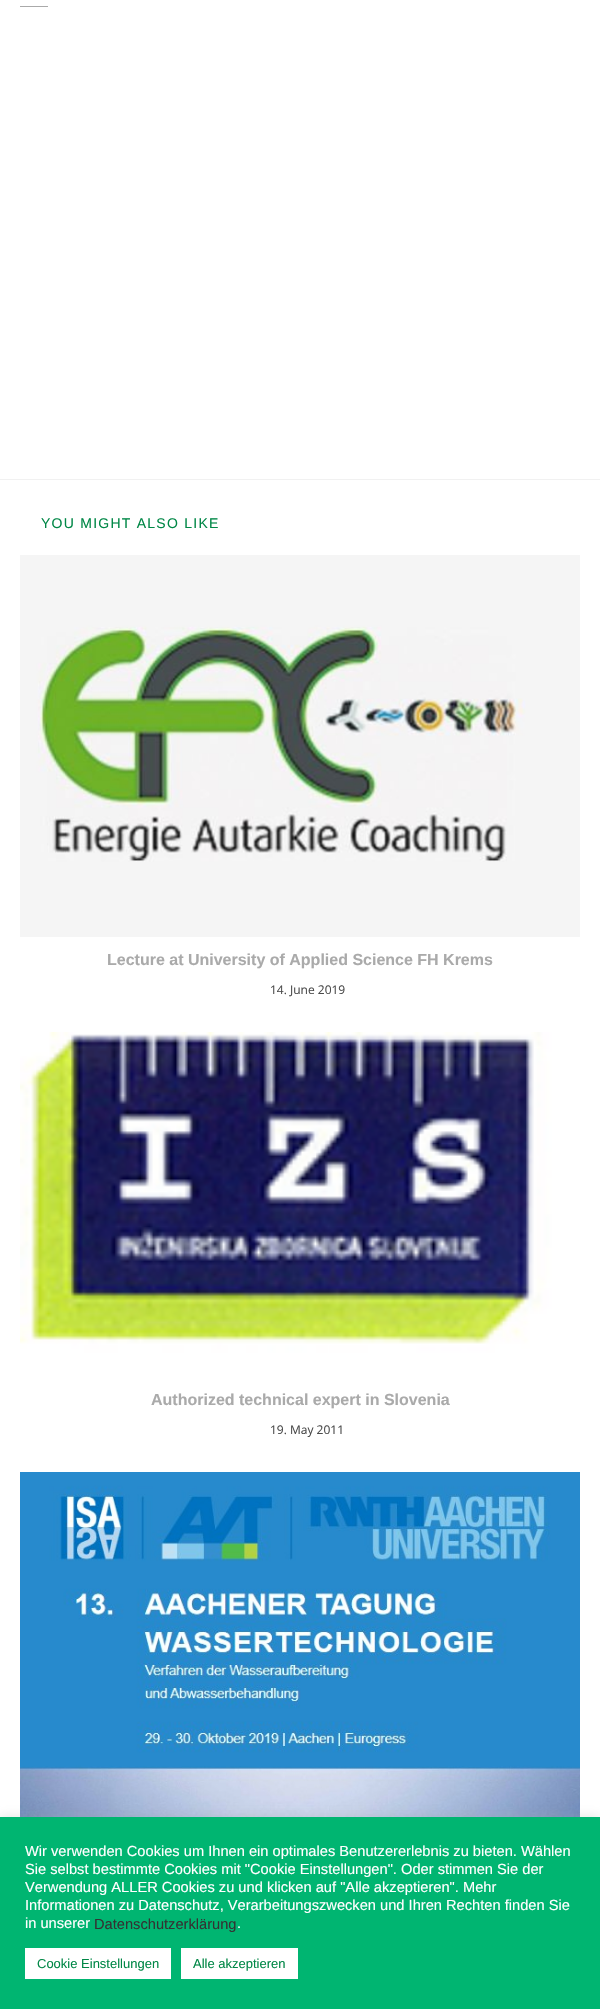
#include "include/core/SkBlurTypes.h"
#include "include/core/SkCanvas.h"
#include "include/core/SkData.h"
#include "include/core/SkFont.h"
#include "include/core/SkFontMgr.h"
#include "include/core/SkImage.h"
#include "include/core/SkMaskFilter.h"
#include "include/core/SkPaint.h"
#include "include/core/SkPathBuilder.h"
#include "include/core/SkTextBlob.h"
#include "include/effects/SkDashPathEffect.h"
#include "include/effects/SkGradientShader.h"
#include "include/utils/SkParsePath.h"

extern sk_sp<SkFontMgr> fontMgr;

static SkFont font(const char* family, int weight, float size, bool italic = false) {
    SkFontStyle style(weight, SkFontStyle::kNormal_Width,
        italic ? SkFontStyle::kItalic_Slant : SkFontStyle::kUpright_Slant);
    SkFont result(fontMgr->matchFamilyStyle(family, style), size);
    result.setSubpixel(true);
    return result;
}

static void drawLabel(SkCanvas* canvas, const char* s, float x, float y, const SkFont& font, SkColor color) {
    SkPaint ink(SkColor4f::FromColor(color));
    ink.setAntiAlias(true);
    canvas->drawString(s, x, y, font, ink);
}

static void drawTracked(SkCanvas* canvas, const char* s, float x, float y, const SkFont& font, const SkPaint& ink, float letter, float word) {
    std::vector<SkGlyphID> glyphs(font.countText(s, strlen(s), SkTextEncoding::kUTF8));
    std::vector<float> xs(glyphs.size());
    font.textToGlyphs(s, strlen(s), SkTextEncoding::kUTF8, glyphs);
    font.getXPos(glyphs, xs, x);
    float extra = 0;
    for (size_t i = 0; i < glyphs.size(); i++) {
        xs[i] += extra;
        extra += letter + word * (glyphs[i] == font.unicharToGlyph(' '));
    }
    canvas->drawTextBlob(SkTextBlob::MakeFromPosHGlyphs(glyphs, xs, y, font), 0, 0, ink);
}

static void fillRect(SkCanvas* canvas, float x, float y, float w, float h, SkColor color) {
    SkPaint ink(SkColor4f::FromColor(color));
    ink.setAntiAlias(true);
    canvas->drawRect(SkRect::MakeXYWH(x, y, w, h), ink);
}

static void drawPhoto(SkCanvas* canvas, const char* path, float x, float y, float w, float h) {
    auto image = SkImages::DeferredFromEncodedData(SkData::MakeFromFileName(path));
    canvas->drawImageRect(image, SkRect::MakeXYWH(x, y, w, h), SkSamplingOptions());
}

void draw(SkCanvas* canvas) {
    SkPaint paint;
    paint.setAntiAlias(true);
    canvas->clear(0xFFFFFFFF);
    fillRect(canvas, 20, 6, 28, 1, 0xFFAAAAAA);
    fillRect(canvas, 0, 479, 600, 1, 0xFFF1F1F1);
    SkFont font1 = font("Liberation Sans", 400, 14);
    paint.setColor(0xFF008746);
    drawTracked(canvas, "YOU MIGHT ALSO LIKE", 41, 528, font1, paint, 1.25f, 0);
    drawPhoto(canvas, "assets/img1.png", 20, 555, 560, 382);
    SkFont font2 = font("Liberation Sans", 700, 16);
    drawLabel(canvas, "Lecture at University of Applied Science FH Krems", 107, 965, font2, 0xFFAAAAAA);
    SkFont font3 = font("Open Sans", 400, 12);
    drawLabel(canvas, "14. June 2019", 270, 994, font3, 0xFF4A4A4A);
    drawPhoto(canvas, "assets/img2.png", 20, 1032, 560, 345);
    drawLabel(canvas, "Authorized technical expert in Slovenia", 151, 1405, font2, 0xFFAAAAAA);
    drawLabel(canvas, "19. May 2011", 270, 1434, font3, 0xFF4A4A4A);
    drawPhoto(canvas, "assets/img3.png", 20, 1472, 560, 345);
    paint.setColor(0x4DACABAB);
    paint.setMaskFilter(SkMaskFilter::MakeBlur(kNormal_SkBlurStyle, 5));
    canvas->drawRect(SkRect::MakeXYWH(0, 1816, 600, 192), paint);
    paint.setMaskFilter(nullptr);
    fillRect(canvas, 0, 1817, 600, 192, 0xFF00B571);
    SkFont font4 = font("Liberation Sans", 400, 14.65f);
    drawLabel(canvas, "Wir verwenden Cookies um Ihnen ein optimales Benutzererlebnis zu bieten. Wählen", 25, 1856, font4, 0xFFFFFFFF);
    drawLabel(canvas, "Sie selbst bestimmte Cookies mit \"Cookie Einstellungen\". Oder stimmen Sie der", 25, 1874, font4, 0xFFFFFFFF);
    drawLabel(canvas, "Verwendung ALLER Cookies zu und klicken auf \"Alle akzeptieren\". Mehr", 25, 1892, font4, 0xFFFFFFFF);
    drawLabel(canvas, "Informationen zu Datenschutz, Verarbeitungszwecken und Ihren Rechten finden Sie", 25, 1910, font4, 0xFFFFFFFF);
    drawLabel(canvas, "in unserer", 25, 1928, font4, 0xFFFFFFFF);
    drawLabel(canvas, "Datenschutzerklärung", 94, 1929, font4, 0xFF333333);
    drawLabel(canvas, ".", 237, 1928, font4, 0xFFFFFFFF);
    fillRect(canvas, 25, 1948, 146, 31, 0xFFFFFFFF);
    SkFont font5 = font("Liberation Sans", 400, 13);
    drawLabel(canvas, "Cookie Einstellungen", 37, 1968, font5, 0xFF008746);
    fillRect(canvas, 181, 1948, 117, 31, 0xFFFFFFFF);
    drawLabel(canvas, "Alle akzeptieren", 193, 1968, font5, 0xFF008746);
}
